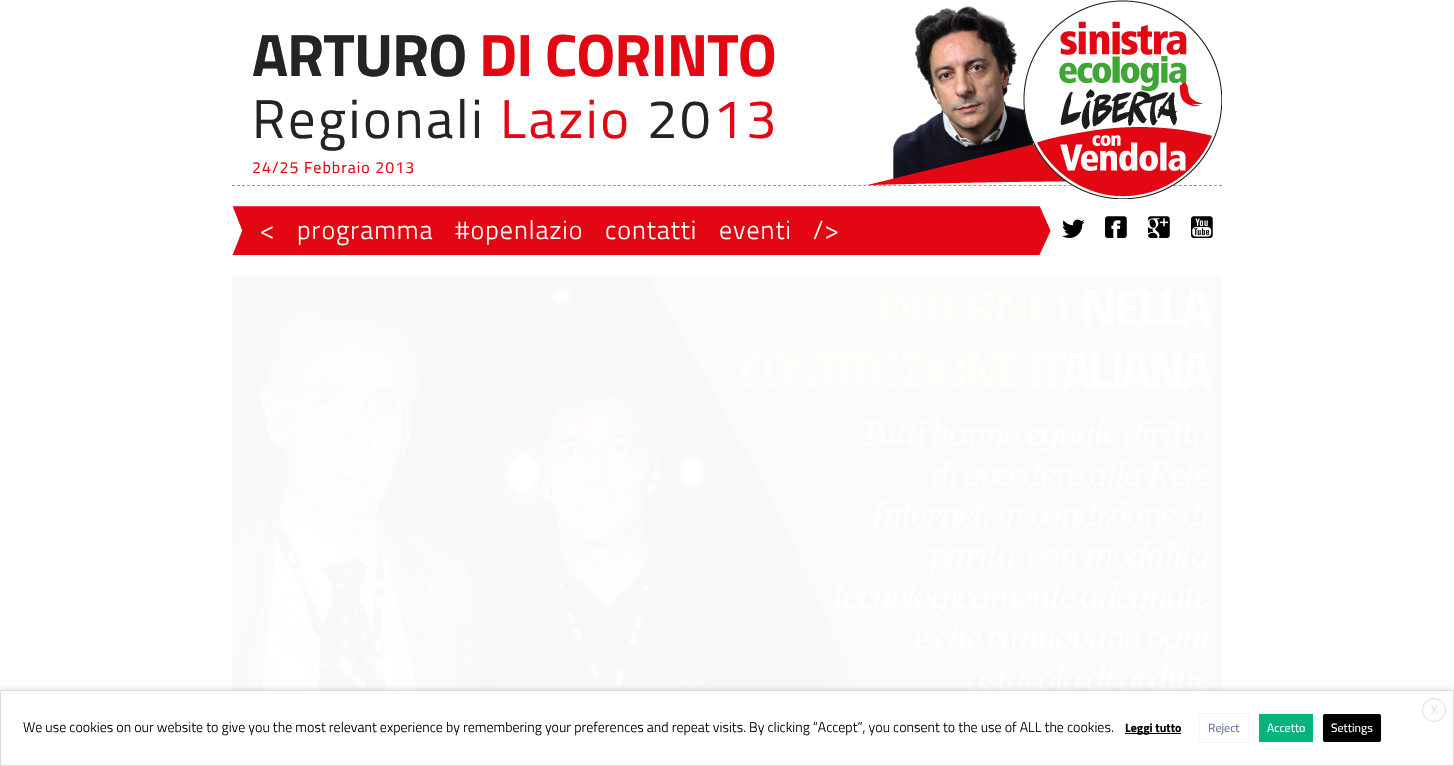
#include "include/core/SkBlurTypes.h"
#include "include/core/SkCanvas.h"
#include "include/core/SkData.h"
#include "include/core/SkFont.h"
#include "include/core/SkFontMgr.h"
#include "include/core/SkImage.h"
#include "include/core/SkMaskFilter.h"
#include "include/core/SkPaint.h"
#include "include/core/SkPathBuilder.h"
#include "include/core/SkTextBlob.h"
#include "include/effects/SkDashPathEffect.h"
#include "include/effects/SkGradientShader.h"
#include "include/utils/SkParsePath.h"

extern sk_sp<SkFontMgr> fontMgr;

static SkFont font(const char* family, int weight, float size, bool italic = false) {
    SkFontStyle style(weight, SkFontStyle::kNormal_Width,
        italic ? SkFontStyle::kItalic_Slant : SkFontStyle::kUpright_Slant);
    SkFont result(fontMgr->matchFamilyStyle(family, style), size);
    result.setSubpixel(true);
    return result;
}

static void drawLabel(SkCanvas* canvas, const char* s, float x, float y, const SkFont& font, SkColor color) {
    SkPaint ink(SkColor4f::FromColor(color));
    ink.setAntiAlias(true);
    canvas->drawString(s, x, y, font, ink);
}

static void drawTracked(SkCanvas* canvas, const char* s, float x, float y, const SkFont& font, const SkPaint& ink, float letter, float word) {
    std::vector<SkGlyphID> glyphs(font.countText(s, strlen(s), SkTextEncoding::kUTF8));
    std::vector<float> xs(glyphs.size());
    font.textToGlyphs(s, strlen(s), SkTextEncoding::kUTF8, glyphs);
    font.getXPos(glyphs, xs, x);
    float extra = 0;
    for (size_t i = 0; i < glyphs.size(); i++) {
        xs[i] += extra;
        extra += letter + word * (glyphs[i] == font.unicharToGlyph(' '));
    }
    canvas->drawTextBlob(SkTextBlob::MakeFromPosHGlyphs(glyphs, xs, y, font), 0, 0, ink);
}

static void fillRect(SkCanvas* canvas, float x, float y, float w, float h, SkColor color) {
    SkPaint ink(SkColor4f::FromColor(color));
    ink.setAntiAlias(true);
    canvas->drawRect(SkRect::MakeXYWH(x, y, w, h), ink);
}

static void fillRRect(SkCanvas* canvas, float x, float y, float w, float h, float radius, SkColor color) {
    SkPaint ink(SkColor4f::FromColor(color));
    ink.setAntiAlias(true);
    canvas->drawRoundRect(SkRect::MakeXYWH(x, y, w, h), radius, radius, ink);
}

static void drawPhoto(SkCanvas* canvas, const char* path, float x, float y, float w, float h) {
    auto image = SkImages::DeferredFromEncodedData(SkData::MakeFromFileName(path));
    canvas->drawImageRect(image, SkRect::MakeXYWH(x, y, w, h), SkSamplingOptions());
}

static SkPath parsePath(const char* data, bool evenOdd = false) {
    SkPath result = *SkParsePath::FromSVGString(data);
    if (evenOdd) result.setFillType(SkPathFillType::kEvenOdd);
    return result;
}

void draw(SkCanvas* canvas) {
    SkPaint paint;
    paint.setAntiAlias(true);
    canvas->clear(0xFFFFFFFF);
    paint.setStroke(true);
    paint.setStrokeWidth(1);
    paint.setColor(0xFF999999);
    paint.setPathEffect(SkDashPathEffect::Make({{3, 2.01f}}, 0));
    canvas->drawPath(parsePath("M232 185.5H1222"), paint);
    paint.setPathEffect(nullptr);
    SkFont font1 = font("Titillium Web", 700, 60);
    paint.setStroke(false);
    paint.setColor(0xFF242424);
    drawTracked(canvas, "ARTURO", 252, 76, font1, paint, -1, 0);
    paint.setColor(0xFFE30613);
    drawTracked(canvas, "DI CORINTO", 479, 76, font1, paint, -1, 0);
    SkFont font2 = font("Titillium Web", 400, 54.5f);
    paint.setColor(0xFF242424);
    drawTracked(canvas, "Regionali", 252, 138, font2, paint, 2.5f, 0);
    paint.setColor(0xFFE30613);
    drawTracked(canvas, "Lazio", 500, 138, font2, paint, 2.5f, 0);
    paint.setColor(0xFF242424);
    drawTracked(canvas, "20", 647, 138, font2, paint, 2.5f, 0);
    paint.setColor(0xFFE30613);
    drawTracked(canvas, "13", 713, 138, font2, paint, 2.5f, 0);
    SkFont font3 = font("Titillium Web", 400, 16);
    drawTracked(canvas, "24/25 Febbraio 2013", 252, 173, font3, paint, 1, 0);
    drawPhoto(canvas, "assets/img1.png", 868, 0, 354, 199);
    drawPhoto(canvas, "assets/img2.png", 232, 206, 819, 49);
    SkFont font4 = font("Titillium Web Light", 300, 26);
    paint.setColor(0xFFFFFFFF);
    drawTracked(canvas, "<", 260, 239, font4, paint, 1, 0);
    drawTracked(canvas, "programma", 297, 239, font4, paint, 1, 0);
    drawTracked(canvas, "#openlazio", 455, 239, font4, paint, 1, 0);
    drawTracked(canvas, "contatti", 605, 239, font4, paint, 1, 0);
    drawTracked(canvas, "eventi", 719, 239, font4, paint, 1, 0);
    drawTracked(canvas, "/>", 813, 239, font4, paint, 1, 0);
    drawPhoto(canvas, "assets/img3.png", 1062, 219, 23, 19);
    drawPhoto(canvas, "assets/img4.png", 1105, 216, 22, 22);
    drawPhoto(canvas, "assets/img5.png", 1148, 216, 22, 22);
    drawPhoto(canvas, "assets/img6.png", 1191, 216, 22, 22);
    drawPhoto(canvas, "assets/img7.png", 232, 275, 990, 415);
    paint.setColor(0x80000000);
    paint.setMaskFilter(SkMaskFilter::MakeBlur(kNormal_SkBlurStyle, 5));
    canvas->drawRect(SkRect::MakeXYWH(0, 695, 1454, 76), paint);
    paint.setMaskFilter(nullptr);
    paint.setColor(0xFFFFFFFF);
    canvas->drawRect(SkRect::MakeXYWH(0.5f, 690.5f, 1453, 75), paint);
    paint.setStroke(true);
    paint.setColor(0xFFDBDBDB);
    canvas->drawRect(SkRect::MakeXYWH(0.5f, 690.5f, 1453, 75), paint);
    paint.setColor(0xFFDDDDDD);
    canvas->drawCircle(1434, 710, 11.5f, paint);
    SkFont font5 = font("Titillium Web Light", 300, 12);
    drawLabel(canvas, "X", 1431, 714, font5, 0xFFDDDDDD);
    SkFont font6 = font("Titillium Web Light", 300, 14);
    drawLabel(canvas, "We use cookies on our website to give you the most relevant experience by remembering your preferences and repeat visits. By clicking “Accept”, you consent to the use of ALL the cookies.", 23, 732, font6, 0xFF000000);
    fillRect(canvas, 1125, 733, 56, 1, 0xFF000000);
    SkFont font7 = font("Titillium Web", 700, 12);
    drawLabel(canvas, "Leggi tutto", 1125, 732, font7, 0xFF000000);
    paint.setColor(0xFFF4F4F9);
    canvas->drawRoundRect(SkRect::MakeXYWH(1199.5f, 713.5f, 49, 29), 1.5f, 1.5f, paint);
    SkFont font8 = font("Titillium Web", 400, 12);
    drawLabel(canvas, "Reject", 1208, 732, font8, 0xFF646C9B);
    fillRect(canvas, 1259, 714, 54, 28, 0xFF04B47C);
    drawLabel(canvas, "Accetto", 1267, 732, font8, 0xFFFFFFFF);
    fillRRect(canvas, 1323, 714, 58, 28, 2, 0xFF000000);
    drawLabel(canvas, "Settings", 1331, 732, font8, 0xFFFFFFFF);
}
